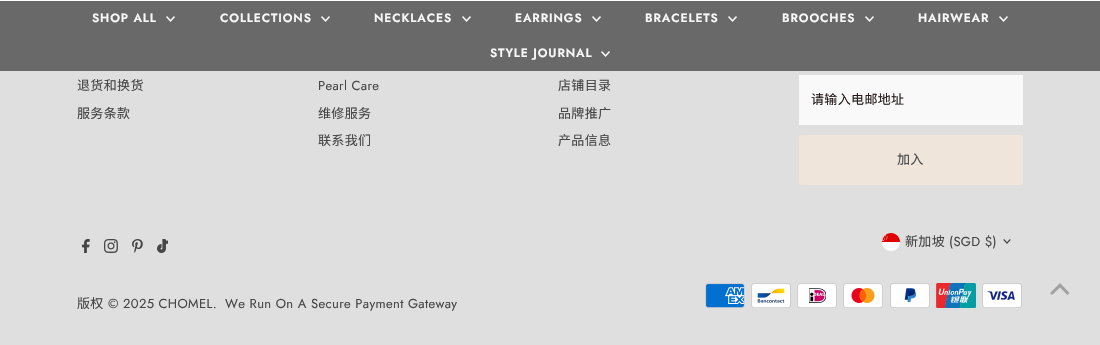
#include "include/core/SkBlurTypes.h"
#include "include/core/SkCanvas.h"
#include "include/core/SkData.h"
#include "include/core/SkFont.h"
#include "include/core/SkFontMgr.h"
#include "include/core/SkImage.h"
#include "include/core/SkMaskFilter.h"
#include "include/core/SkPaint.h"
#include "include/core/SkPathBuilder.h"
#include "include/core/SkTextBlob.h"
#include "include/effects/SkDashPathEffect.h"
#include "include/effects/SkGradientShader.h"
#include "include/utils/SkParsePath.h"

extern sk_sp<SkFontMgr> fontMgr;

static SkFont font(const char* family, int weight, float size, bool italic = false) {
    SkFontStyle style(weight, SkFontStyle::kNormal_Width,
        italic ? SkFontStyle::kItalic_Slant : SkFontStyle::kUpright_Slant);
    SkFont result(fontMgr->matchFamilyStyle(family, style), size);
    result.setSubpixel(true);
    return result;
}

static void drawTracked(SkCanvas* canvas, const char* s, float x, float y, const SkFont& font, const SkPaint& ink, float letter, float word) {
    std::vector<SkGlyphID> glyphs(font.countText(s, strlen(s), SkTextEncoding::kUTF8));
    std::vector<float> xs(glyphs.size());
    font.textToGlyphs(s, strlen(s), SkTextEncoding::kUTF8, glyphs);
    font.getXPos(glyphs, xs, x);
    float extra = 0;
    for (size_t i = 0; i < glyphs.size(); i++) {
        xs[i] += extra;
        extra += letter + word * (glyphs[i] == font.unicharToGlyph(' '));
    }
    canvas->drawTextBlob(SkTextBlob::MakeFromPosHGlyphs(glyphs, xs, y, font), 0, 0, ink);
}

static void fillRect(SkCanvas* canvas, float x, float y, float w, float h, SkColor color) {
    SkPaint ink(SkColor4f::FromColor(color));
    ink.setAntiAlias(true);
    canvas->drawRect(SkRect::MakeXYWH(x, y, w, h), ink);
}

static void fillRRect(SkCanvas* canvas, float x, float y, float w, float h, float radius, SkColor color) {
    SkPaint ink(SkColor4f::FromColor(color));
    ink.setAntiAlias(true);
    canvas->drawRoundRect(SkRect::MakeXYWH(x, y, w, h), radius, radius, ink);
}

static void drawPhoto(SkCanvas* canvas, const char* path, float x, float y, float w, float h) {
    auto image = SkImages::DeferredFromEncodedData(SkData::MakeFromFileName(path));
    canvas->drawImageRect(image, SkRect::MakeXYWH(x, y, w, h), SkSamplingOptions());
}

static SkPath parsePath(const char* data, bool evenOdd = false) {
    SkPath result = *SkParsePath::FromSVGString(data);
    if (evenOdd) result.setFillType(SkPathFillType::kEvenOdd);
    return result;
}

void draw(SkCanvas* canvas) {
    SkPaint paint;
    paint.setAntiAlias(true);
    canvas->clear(0xFFDFDFDF);
    fillRect(canvas, 0, 0, 1100, 1, 0xFFFFFFFF);
    fillRect(canvas, 0, 1, 1100, 70, 0xFF696969);
    SkFont font1 = font("Jost", 600, 12);
    paint.setColor(0xFFF9F9F9);
    drawTracked(canvas, "SHOP ALL", 92, 22, font1, paint, 0.9f, 0);
    drawPhoto(canvas, "assets/img1.png", 166, 16, 9, 6);
    drawTracked(canvas, "COLLECTIONS", 220, 22, font1, paint, 0.9f, 0);
    drawPhoto(canvas, "assets/img1.png", 321, 16, 9, 6);
    drawTracked(canvas, "NECKLACES", 374, 22, font1, paint, 0.9f, 0);
    drawPhoto(canvas, "assets/img1.png", 462, 16, 9, 6);
    drawTracked(canvas, "EARRINGS", 515, 22, font1, paint, 0.9f, 0);
    drawPhoto(canvas, "assets/img1.png", 592, 16, 9, 6);
    drawTracked(canvas, "BRACELETS", 645, 22, font1, paint, 0.9f, 0);
    drawPhoto(canvas, "assets/img1.png", 728, 16, 9, 6);
    drawTracked(canvas, "BROOCHES", 782, 22, font1, paint, 0.9f, 0);
    drawPhoto(canvas, "assets/img1.png", 865, 16, 9, 6);
    drawTracked(canvas, "HAIRWEAR", 918, 22, font1, paint, 0.9f, 0);
    drawPhoto(canvas, "assets/img1.png", 999, 16, 9, 6);
    drawTracked(canvas, "STYLE JOURNAL", 490, 57, font1, paint, 0.9f, 0);
    drawPhoto(canvas, "assets/img1.png", 601, 51, 9, 6);
    SkFont font2 = font("Noto Sans CJK SC", 400, 13);
    paint.setColor(0xFF454545);
    drawTracked(canvas, "退货和换货", 77, 90, font2, paint, 0.35f, 0);
    drawTracked(canvas, "服务条款", 77, 118, font2, paint, 0.35f, 0);
    SkFont font3 = font("Jost", 400, 13);
    drawTracked(canvas, "Pearl Care", 318, 90, font3, paint, 0.35f, 0);
    drawTracked(canvas, "维修服务", 318, 118, font2, paint, 0.35f, 0);
    drawTracked(canvas, "联系我们", 318, 145, font2, paint, 0.35f, 0);
    drawTracked(canvas, "店铺目录", 558, 90, font2, paint, 0.35f, 0);
    drawTracked(canvas, "品牌推广", 558, 118, font2, paint, 0.35f, 0);
    drawTracked(canvas, "产品信息", 558, 145, font2, paint, 0.35f, 0);
    fillRect(canvas, 799, 75, 224, 50, 0xFFF9F9F9);
    paint.setColor(0xFF261C1C);
    drawTracked(canvas, "请输入电邮地址", 811, 104, font2, paint, 0.35f, 0);
    fillRRect(canvas, 799, 135, 224, 50, 3, 0xFFEFE5DA);
    paint.setColor(0xFF454545);
    drawTracked(canvas, "加入", 897, 164, font2, paint, 0.35f, 0);
    drawPhoto(canvas, "assets/img2.png", 882, 233, 18, 18);
    drawTracked(canvas, "新加坡", 905, 246, font2, paint, 0.35f, 0);
    drawTracked(canvas, "(SGD $)", 949, 246, font3, paint, 0.35f, 0);
    drawPhoto(canvas, "assets/img3.png", 1003, 239, 8, 5);
    drawPhoto(canvas, "assets/img4.png", 705, 283, 40, 25);
    drawPhoto(canvas, "assets/img5.png", 751, 283, 40, 25);
    drawPhoto(canvas, "assets/img6.png", 797, 283, 40, 25);
    drawPhoto(canvas, "assets/img7.png", 843, 283, 40, 25);
    drawPhoto(canvas, "assets/img8.png", 890, 283, 40, 25);
    drawPhoto(canvas, "assets/img9.png", 936, 283, 40, 25);
    drawPhoto(canvas, "assets/img10.png", 982, 283, 40, 25);
    drawPhoto(canvas, "assets/img11.png", 82, 239, 8, 14);
    drawPhoto(canvas, "assets/img12.png", 104, 239, 14, 14);
    drawPhoto(canvas, "assets/img13.png", 132, 239, 11, 14);
    drawPhoto(canvas, "assets/img14.png", 157, 239, 11, 14);
    drawTracked(canvas, "版权", 77, 308, font2, paint, 0.35f, 0);
    drawTracked(canvas, "© 2025 CHOMEL.", 108, 308, font3, paint, 0.35f, 0);
    drawTracked(canvas, "We Run On A Secure Payment Gateway", 225, 308, font3, paint, 0.35f, 0);
    paint.setColor(0xFFA1A1A1);
    canvas->drawPath(parsePath("M1060 283L1050 293L1052 295L1060 287.5L1067.5 295L1069.5 293Z"), paint);
}
